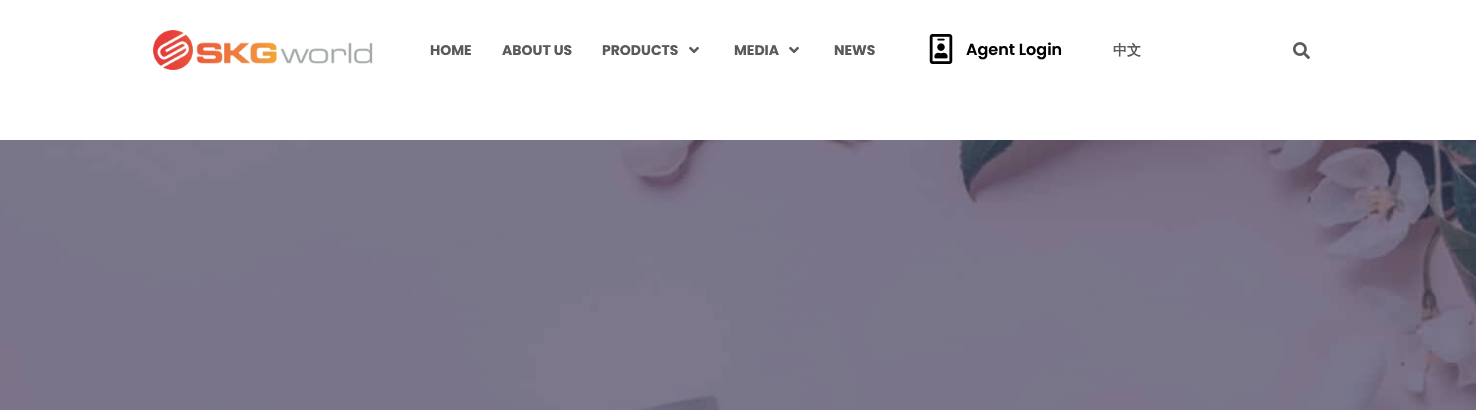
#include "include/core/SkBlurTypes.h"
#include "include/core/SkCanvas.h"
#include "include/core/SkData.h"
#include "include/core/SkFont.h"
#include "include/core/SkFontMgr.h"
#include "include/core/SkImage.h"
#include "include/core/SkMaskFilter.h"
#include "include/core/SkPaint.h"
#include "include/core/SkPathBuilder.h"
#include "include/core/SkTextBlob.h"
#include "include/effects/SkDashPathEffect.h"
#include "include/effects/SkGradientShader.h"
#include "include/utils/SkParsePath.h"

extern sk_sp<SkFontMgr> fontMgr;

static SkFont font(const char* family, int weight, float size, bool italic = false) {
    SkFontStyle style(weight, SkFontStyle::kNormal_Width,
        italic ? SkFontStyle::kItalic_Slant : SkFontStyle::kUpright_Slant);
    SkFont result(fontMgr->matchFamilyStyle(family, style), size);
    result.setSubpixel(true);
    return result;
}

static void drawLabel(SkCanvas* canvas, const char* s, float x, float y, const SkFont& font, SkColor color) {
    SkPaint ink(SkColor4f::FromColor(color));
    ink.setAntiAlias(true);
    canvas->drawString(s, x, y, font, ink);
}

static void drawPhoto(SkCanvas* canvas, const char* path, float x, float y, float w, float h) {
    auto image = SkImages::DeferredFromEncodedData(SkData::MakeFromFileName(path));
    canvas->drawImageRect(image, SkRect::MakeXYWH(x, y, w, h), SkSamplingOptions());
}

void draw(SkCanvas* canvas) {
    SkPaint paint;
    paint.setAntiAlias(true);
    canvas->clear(0xFFFFFFFF);
    drawPhoto(canvas, "assets/img1.png", 153, 30, 220, 40);
    SkFont font1 = font("Poppins", 700, 14);
    drawLabel(canvas, "HOME", 430, 55, font1, 0xFF5A5A5A);
    drawLabel(canvas, "ABOUT US", 502, 55, font1, 0xFF5A5A5A);
    drawLabel(canvas, "PRODUCTS", 602, 55, font1, 0xFF5A5A5A);
    drawPhoto(canvas, "assets/img2.png", 689, 46, 10, 8);
    drawLabel(canvas, "MEDIA", 734, 55, font1, 0xFF5A5A5A);
    drawPhoto(canvas, "assets/img2.png", 789, 46, 10, 8);
    drawLabel(canvas, "NEWS", 834, 55, font1, 0xFF5A5A5A);
    drawPhoto(canvas, "assets/img3.png", 929, 34, 24, 30);
    SkFont font2 = font("Poppins", 600, 16);
    drawLabel(canvas, "Agent Login", 966, 55, font2, 0xFF000000);
    SkFont font3 = font("WenQuanYi Zen Hei", 700, 14);
    drawLabel(canvas, "中文", 1113, 55, font3, 0xFF5A5A5A);
    drawPhoto(canvas, "assets/img4.png", 1293, 42, 17, 18);
    drawPhoto(canvas, "assets/img5.png", 0, 140, 1476, 270);
}
